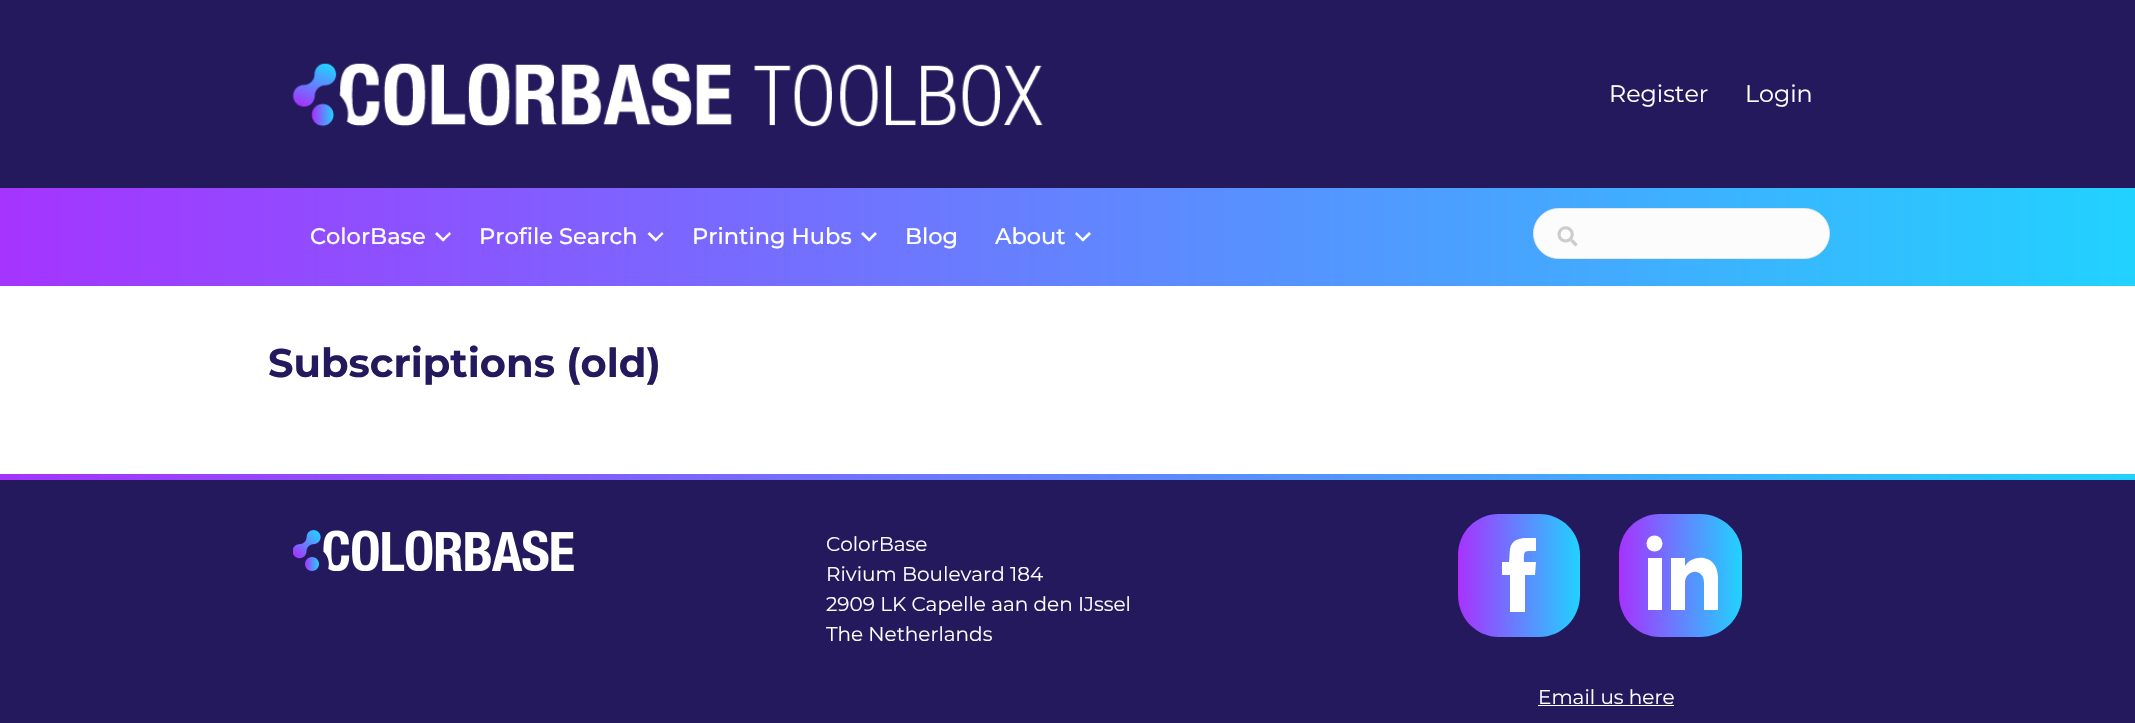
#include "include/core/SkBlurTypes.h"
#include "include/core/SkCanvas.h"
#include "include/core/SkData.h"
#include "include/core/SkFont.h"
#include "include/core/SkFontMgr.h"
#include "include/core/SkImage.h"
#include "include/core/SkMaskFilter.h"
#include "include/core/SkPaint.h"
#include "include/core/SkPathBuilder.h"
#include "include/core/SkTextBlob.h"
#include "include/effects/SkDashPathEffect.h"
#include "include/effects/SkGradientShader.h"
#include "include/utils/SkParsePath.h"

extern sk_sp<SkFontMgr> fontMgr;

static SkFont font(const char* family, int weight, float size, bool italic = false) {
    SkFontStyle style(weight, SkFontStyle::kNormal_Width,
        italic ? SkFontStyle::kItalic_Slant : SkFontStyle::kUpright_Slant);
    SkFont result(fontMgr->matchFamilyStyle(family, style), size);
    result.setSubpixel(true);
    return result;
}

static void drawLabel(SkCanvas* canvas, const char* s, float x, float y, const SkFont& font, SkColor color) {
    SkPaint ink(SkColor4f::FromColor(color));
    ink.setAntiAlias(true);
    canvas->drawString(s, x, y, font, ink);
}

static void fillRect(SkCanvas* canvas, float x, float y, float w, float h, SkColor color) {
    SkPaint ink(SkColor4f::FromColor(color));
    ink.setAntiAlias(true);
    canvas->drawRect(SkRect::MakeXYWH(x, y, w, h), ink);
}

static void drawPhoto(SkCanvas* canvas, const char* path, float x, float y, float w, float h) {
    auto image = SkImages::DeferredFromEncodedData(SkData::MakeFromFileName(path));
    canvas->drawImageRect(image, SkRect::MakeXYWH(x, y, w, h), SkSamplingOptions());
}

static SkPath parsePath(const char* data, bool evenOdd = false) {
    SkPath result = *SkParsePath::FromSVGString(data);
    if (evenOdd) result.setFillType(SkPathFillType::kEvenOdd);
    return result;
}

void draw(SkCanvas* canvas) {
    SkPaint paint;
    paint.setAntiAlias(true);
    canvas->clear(0xFFFFFFFF);
    fillRect(canvas, 0, 0, 2135, 188, 0xFF24195D);
    drawPhoto(canvas, "assets/img1.png", 292, 63, 751, 64);
    SkFont font1 = font("Montserrat", 400, 23.75f);
    drawLabel(canvas, "Register", 1609, 102, font1, 0xFFFFFFFF);
    drawLabel(canvas, "Login", 1745, 102, font1, 0xFFFFFFFF);
    {
        const SkColor colors[] = {0xFFA534FF, 0xFF21D2FF};
        const float stops[] = {0, 1};
        const SkPoint ends[] = {{0, 237}, {2135, 237}};
        paint.setShader(SkGradientShader::MakeLinear(ends, colors, stops, 2, SkTileMode::kClamp));
        paint.setAlpha(255);
    }
    canvas->drawRect(SkRect::MakeXYWH(0, 188, 2135, 98), paint);
    SkFont font2 = font("Montserrat", 500, 22.5f);
    drawLabel(canvas, "ColorBase", 310, 244, font2, 0xFFFFFFFF);
    paint.setShader(nullptr);
    paint.setColor(0xFFFFFFFF);
    canvas->drawPath(parsePath("M449.5 232L451 234L443 241.5L441.5 240Z"), paint);
    canvas->drawPath(parsePath("M437 232L445 240L443 241.5L435 234Z"), paint);
    drawLabel(canvas, "Profile Search", 479, 244, font2, 0xFFFFFFFF);
    canvas->drawPath(parsePath("M662 232L663.5 234L655.5 241.5L654 240Z"), paint);
    canvas->drawPath(parsePath("M649.5 232L657.5 240L655.5 241.5L647.5 234Z"), paint);
    drawLabel(canvas, "Printing Hubs", 692, 244, font2, 0xFFFFFFFF);
    canvas->drawPath(parsePath("M875 232L877 234L869 241.5L867.5 240Z"), paint);
    canvas->drawPath(parsePath("M863 232L871 240L869 241.5L861 234Z"), paint);
    drawLabel(canvas, "Blog", 905, 244, font2, 0xFFFFFFFF);
    drawLabel(canvas, "About", 995, 244, font2, 0xFFFFFFFF);
    canvas->drawPath(parsePath("M1089 232L1091 234L1083 241.5L1081 240Z"), paint);
    canvas->drawPath(parsePath("M1076.5 232L1084.5 240L1083 241.5L1075 234Z"), paint);
    paint.setColor(0xFFFCFCFC);
    canvas->drawRoundRect(SkRect::MakeXYWH(1533.5f, 208.5f, 296, 50), 25, 25, paint);
    paint.setStroke(true);
    paint.setStrokeWidth(1);
    paint.setColor(0xFFE6E6E6);
    canvas->drawRoundRect(SkRect::MakeXYWH(1533.5f, 208.5f, 296, 50), 25, 25, paint);
    drawPhoto(canvas, "assets/img2.png", 1557, 226, 21, 21);
    SkFont font3 = font("Montserrat", 700, 40);
    drawLabel(canvas, "Subscriptions (old)", 268, 377, font3, 0xFF24195D);
    paint.setStroke(false);
    {
        const SkColor colors[] = {0xFFA534FF, 0xFF21D2FF};
        const float stops[] = {0, 1};
        const SkPoint ends[] = {{0, 477}, {2135, 477}};
        paint.setShader(SkGradientShader::MakeLinear(ends, colors, stops, 2, SkTileMode::kClamp));
        paint.setAlpha(255);
    }
    canvas->drawRect(SkRect::MakeXYWH(0, 474, 2135, 6), paint);
    fillRect(canvas, 0, 480, 2135, 243, 0xFF24195D);
    drawPhoto(canvas, "assets/img3.png", 293, 530, 281, 41);
    SkFont font4 = font("Montserrat", 400, 20);
    drawLabel(canvas, "ColorBase", 826, 551, font4, 0xFFFFFFFF);
    drawLabel(canvas, "Rivium Boulevard 184", 826, 581, font4, 0xFFFFFFFF);
    drawLabel(canvas, "2909 LK Capelle aan den IJssel", 826, 611, font4, 0xFFFFFFFF);
    drawLabel(canvas, "The Netherlands", 826, 641, font4, 0xFFFFFFFF);
    {
        const SkColor colors[] = {0xFFFF00FF, 0xFFF506FF, 0xFFDA15FF, 0xFFAF2EFF, 0xFFA534FF, 0xFF21D2FF};
        const float stops[] = {0, 0, 0, 0.01f, 0.01f, 1};
        const SkPoint ends[] = {{1458, 575}, {1580, 575}};
        paint.setShader(SkGradientShader::MakeLinear(ends, colors, stops, 6, SkTileMode::kClamp));
        paint.setAlpha(255);
    }
    canvas->drawPath(parsePath("M1499 514H1539C1562 514 1580 532 1580 555V595C1580 618 1562 637 1539 637H1499C1476 637 1458 618 1458 595V555C1458 532 1476 514 1499 514Z"), paint);
    paint.setShader(nullptr);
    paint.setColor(0xFFFFFFFF);
    canvas->drawPath(parsePath("M1510 612H1525V575H1535L1536 562H1524C1524 550 1523 551 1536 551V538C1526 538 1512 536 1510 549L1509 562H1502V575H1510Z"), paint);
    {
        const SkColor colors[] = {0xFFFF00FF, 0xFFF506FF, 0xFFDA15FF, 0xFFAF2EFF, 0xFFA534FF, 0xFF21D2FF};
        const float stops[] = {0, 0, 0, 0.01f, 0.01f, 1};
        const SkPoint ends[] = {{1619, 575}, {1742, 575}};
        paint.setShader(SkGradientShader::MakeLinear(ends, colors, stops, 6, SkTileMode::kClamp));
        paint.setAlpha(255);
    }
    canvas->drawPath(parsePath("M1660 514H1700C1723 514 1742 532 1742 555V595C1742 618 1723 637 1700 637H1660C1637 637 1619 618 1619 595V555C1619 532 1637 514 1660 514Z"), paint);
    fillRect(canvas, 1648, 558, 14, 52, 0xFFFFFFFF);
    paint.setShader(nullptr);
    paint.setColor(0xFFFFFFFF);
    canvas->drawCircle(1654.5f, 543.5f, 8, paint);
    canvas->drawPath(parsePath("M1718 610H1704V583C1704 567 1685 569 1685 583V610H1671V558H1685V566C1692 554 1718 553 1718 578Z"), paint);
    drawLabel(canvas, "Email us here", 1538, 704, font4, 0xFFFFFFFF);
    fillRect(canvas, 1538, 705, 136, 1, 0xFFFFFFFF);
}
